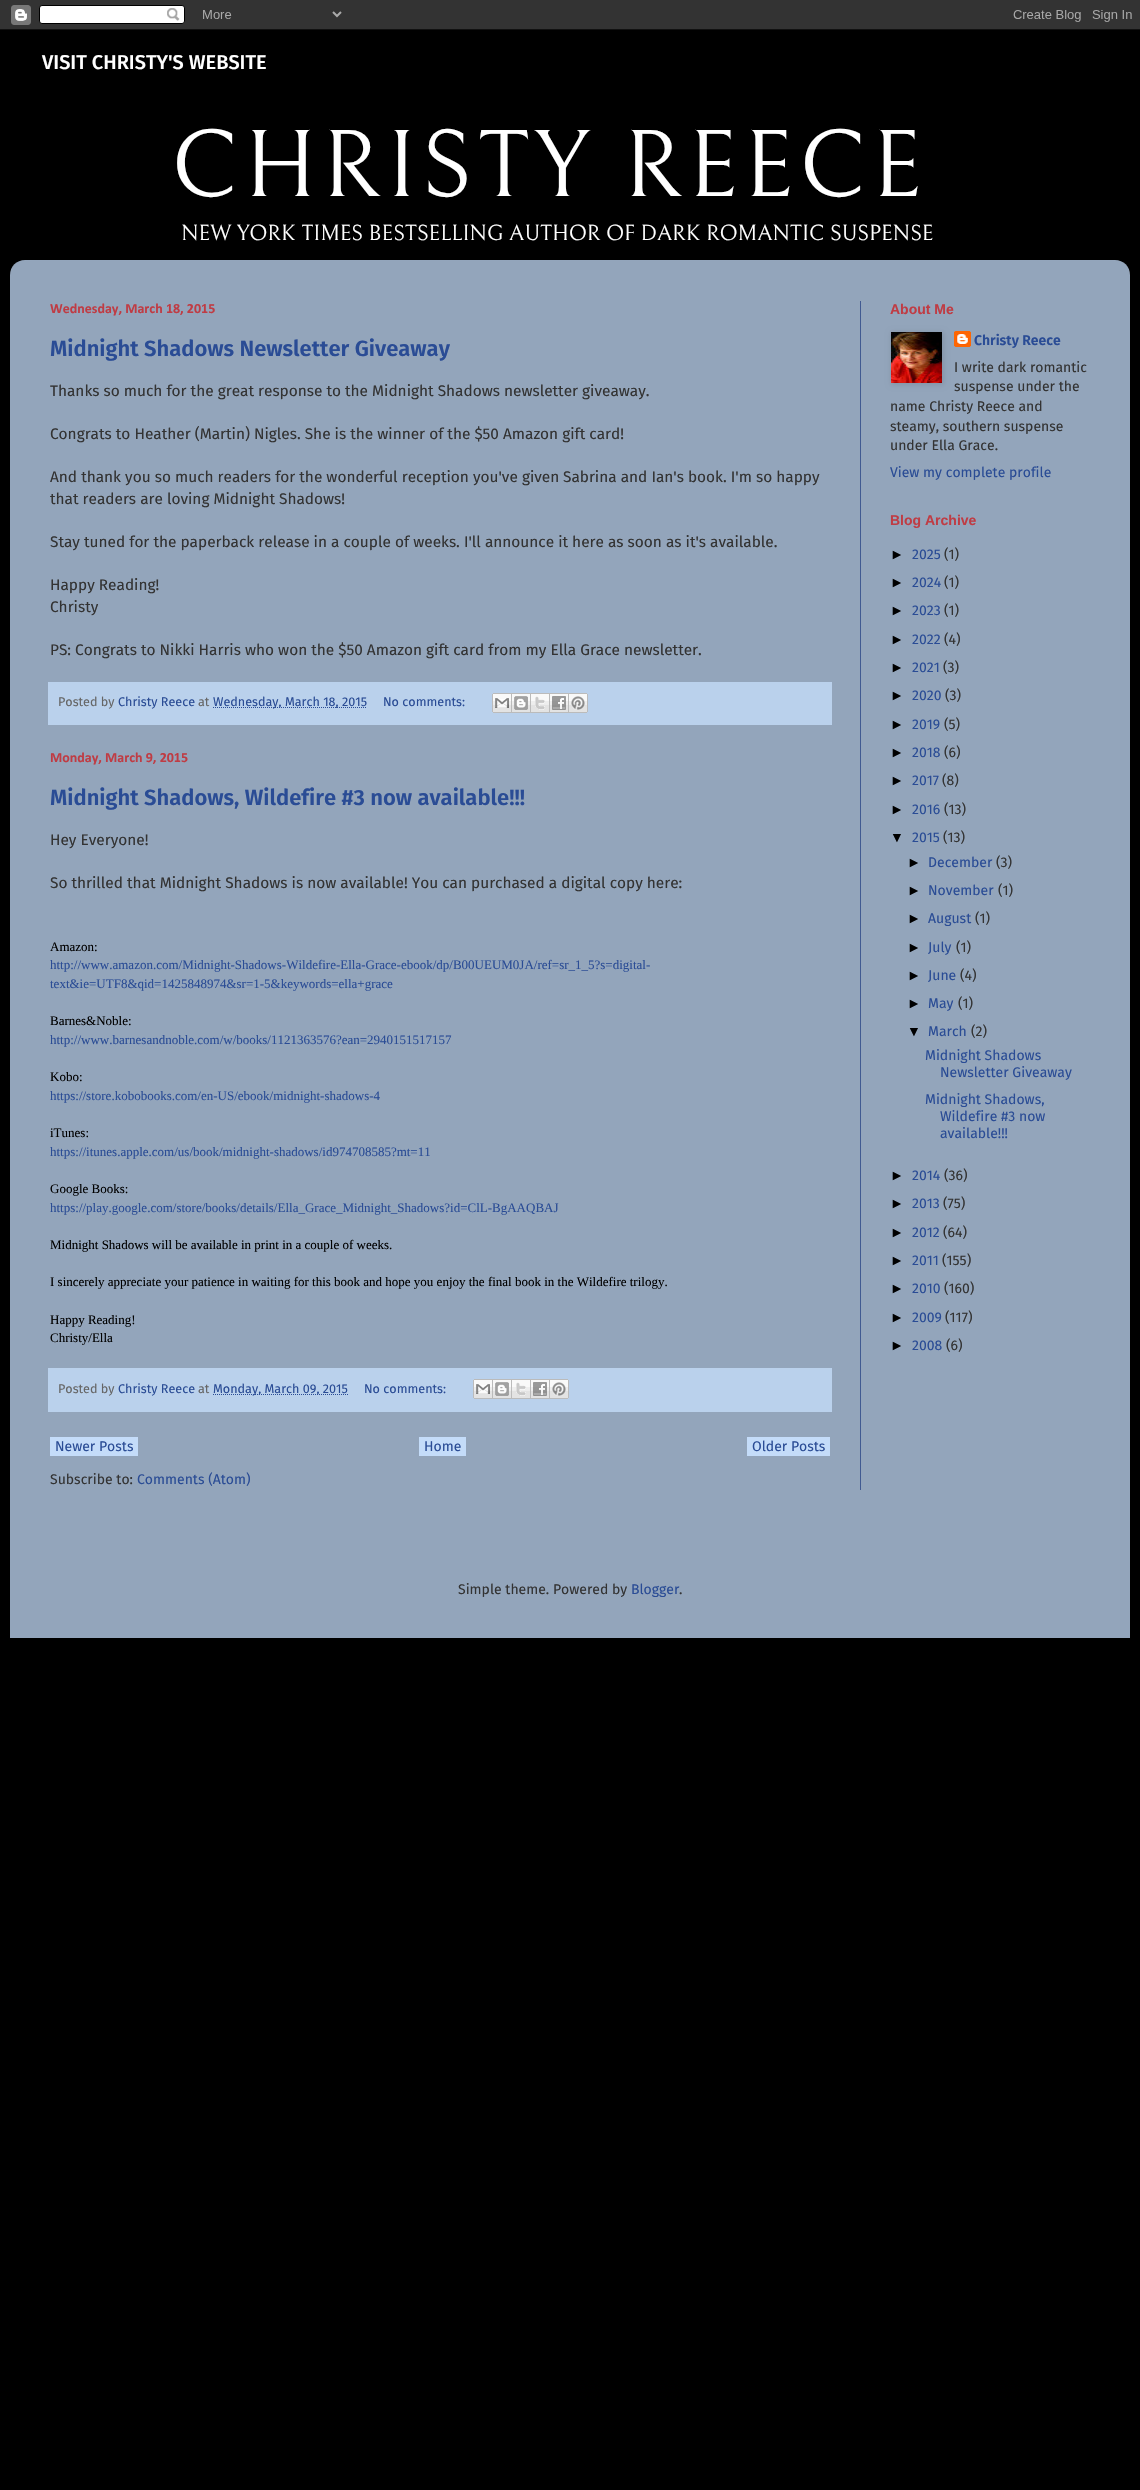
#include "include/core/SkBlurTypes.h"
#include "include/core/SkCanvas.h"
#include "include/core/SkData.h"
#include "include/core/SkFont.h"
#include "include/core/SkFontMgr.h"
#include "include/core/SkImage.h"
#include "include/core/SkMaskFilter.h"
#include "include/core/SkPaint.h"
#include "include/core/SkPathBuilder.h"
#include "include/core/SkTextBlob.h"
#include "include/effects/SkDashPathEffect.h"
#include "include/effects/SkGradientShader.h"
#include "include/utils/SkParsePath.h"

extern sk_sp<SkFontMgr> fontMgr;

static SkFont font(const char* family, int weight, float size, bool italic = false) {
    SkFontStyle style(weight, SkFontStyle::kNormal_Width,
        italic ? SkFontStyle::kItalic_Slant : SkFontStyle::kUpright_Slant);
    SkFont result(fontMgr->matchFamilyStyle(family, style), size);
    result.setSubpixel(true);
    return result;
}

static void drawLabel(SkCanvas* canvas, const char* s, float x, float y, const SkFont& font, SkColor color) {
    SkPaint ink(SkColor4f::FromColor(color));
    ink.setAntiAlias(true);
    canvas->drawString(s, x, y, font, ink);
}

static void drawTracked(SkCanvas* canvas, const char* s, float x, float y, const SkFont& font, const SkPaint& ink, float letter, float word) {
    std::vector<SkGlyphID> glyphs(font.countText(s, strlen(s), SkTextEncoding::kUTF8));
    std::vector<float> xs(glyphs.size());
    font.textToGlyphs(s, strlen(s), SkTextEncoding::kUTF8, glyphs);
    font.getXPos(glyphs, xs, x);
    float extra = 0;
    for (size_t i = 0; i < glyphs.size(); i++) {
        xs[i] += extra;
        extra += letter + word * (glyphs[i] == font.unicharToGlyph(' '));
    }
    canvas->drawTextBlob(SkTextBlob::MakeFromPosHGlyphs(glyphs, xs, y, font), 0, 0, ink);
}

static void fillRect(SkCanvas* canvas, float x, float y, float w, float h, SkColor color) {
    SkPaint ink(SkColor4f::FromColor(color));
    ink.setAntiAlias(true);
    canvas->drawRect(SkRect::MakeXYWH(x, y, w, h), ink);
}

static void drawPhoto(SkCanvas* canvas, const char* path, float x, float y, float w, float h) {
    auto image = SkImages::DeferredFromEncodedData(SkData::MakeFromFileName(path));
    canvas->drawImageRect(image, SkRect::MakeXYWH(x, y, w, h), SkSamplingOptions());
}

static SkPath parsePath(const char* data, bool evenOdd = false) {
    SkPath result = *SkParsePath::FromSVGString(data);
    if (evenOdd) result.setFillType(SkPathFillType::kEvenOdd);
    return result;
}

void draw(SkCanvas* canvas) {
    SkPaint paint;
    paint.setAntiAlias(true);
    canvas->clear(0xFF000000);
    drawPhoto(canvas, "assets/img1.png", 0, 0, 1140, 30);
    SkFont font1 = font("Fira Sans", 500, 20);
    drawLabel(canvas, "VISIT CHRISTY'S WEBSITE", 42, 69, font1, 0xFFFFFFFF);
    SkFont font2 = font("Bellefair", 400, 96);
    paint.setColor(0xFFFFFFFF);
    drawTracked(canvas, "CHRISTY REECE", 171, 196, font2, paint, 5, 0);
    SkFont font3 = font("Bellefair", 400, 22);
    drawLabel(canvas, "NEW YORK TIMES BESTSELLING AUTHOR OF DARK ROMANTIC SUSPENSE", 181, 240, font3, 0xFFFFFFFF);
    paint.setColor(0xFF93A5BB);
    canvas->drawPath(parsePath("M25 260H1115C1123.5 260 1130 266.5 1130 275V1638H10V275C10 266.5 16.5 260 25 260Z"), paint);
    fillRect(canvas, 860, 301, 1, 1189, 0xFF415A91);
    SkFont font4 = font("Calibri", 700, 14);
    drawLabel(canvas, "Wednesday, March 18, 2015", 50, 313, font4, 0xFFBF3C44);
    SkFont font5 = font("Fira Sans", 600, 22);
    drawLabel(canvas, "Midnight Shadows Newsletter Giveaway", 50, 356, font5, 0xFF2A4C95);
    SkFont font6 = font("Fira Sans", 400, 15.4f);
    drawLabel(canvas, "Thanks so much for the great response to the Midnight Shadows newsletter giveaway.", 50, 396, font6, 0xFF333333);
    drawLabel(canvas, "Congrats to Heather (Martin) Nigles. She is the winner of the $50 Amazon gift card!", 50, 439, font6, 0xFF333333);
    drawLabel(canvas, "And thank you so much readers for the wonderful reception you've given", 50, 482, font6, 0xFF333333);
    drawLabel(canvas, "Sabrina and Ian's book. I'm so happy", 563, 482, font6, 0xFF333333);
    drawLabel(canvas, "that readers are loving Midnight Shadows!", 50, 504, font6, 0xFF333333);
    drawLabel(canvas, "Stay tuned for the paperback release in a couple of weeks. I'll announce it here as soon as it's available.", 50, 547, font6, 0xFF333333);
    drawLabel(canvas, "Happy Reading!", 50, 590, font6, 0xFF333333);
    drawLabel(canvas, "Christy", 50, 612, font6, 0xFF333333);
    drawLabel(canvas, "PS: Congrats to Nikki Harris who won the $50 Amazon gift card from my Ella Grace newsletter.", 50, 655, font6, 0xFF333333);
    fillRect(canvas, 48, 682, 784, 43, 0xFFBAD1EC);
    SkFont font7 = font("Fira Sans", 400, 12.6f);
    drawLabel(canvas, "Posted by", 58, 706, font7, 0xFF666666);
    drawLabel(canvas, "Christy Reece", 118, 706, font7, 0xFF2A4C95);
    drawLabel(canvas, "at", 198, 706, font7, 0xFF666666);
    paint.setStroke(true);
    paint.setStrokeWidth(1);
    paint.setColor(0xFF2A4C95);
    paint.setPathEffect(SkDashPathEffect::Make({{1, 1}}, 0));
    canvas->drawPath(parsePath("M213 707.5H367"), paint);
    paint.setPathEffect(nullptr);
    drawLabel(canvas, "Wednesday, March 18, 2015", 213, 706, font7, 0xFF2A4C95);
    drawLabel(canvas, "No comments:", 383, 706, font7, 0xFF2A4C95);
    drawPhoto(canvas, "assets/img2.png", 492, 693, 20, 20);
    drawPhoto(canvas, "assets/img3.png", 512, 693, 19, 20);
    drawPhoto(canvas, "assets/img4.png", 531, 693, 19, 20);
    drawPhoto(canvas, "assets/img5.png", 550, 693, 19, 20);
    drawPhoto(canvas, "assets/img6.png", 569, 693, 19, 20);
    drawLabel(canvas, "Monday, March 9, 2015", 50, 762, font4, 0xFFBF3C44);
    drawLabel(canvas, "Midnight Shadows, Wildefire #3 now available!!!", 50, 805, font5, 0xFF2A4C95);
    drawLabel(canvas, "Hey Everyone!", 50, 845, font6, 0xFF333333);
    drawLabel(canvas, "So thrilled that Midnight Shadows is now available! You can purchased a digital copy here:", 50, 888, font6, 0xFF333333);
    SkFont font8 = font("Liberation Serif", 400, 13);
    drawLabel(canvas, "Amazon:", 50, 951, font8, 0xFF000000);
    drawLabel(canvas, "http://www.amazon.com/Midnight-Shadows-Wildefire-Ella-Grace-ebook/dp/B00UEUM0JA/ref=sr_1_5?s=digital-", 50, 969, font8, 0xFF2A4C95);
    drawLabel(canvas, "text&ie=UTF8&qid=1425848974&sr=1-5&keywords=ella+grace", 50, 988, font8, 0xFF2A4C95);
    drawLabel(canvas, "Barnes&Noble:", 50, 1025, font8, 0xFF000000);
    drawLabel(canvas, "http://www.barnesandnoble.com/w/books/1121363576?ean=2940151517157", 50, 1044, font8, 0xFF2A4C95);
    drawLabel(canvas, "Kobo:", 50, 1081, font8, 0xFF000000);
    drawLabel(canvas, "https://store.kobobooks.com/en-US/ebook/midnight-shadows-4", 50, 1100, font8, 0xFF2A4C95);
    drawLabel(canvas, "iTunes:", 50, 1137, font8, 0xFF000000);
    drawLabel(canvas, "https://itunes.apple.com/us/book/midnight-shadows/id974708585?mt=11", 50, 1156, font8, 0xFF2A4C95);
    drawLabel(canvas, "Google Books:", 50, 1193, font8, 0xFF000000);
    drawLabel(canvas, "https://play.google.com/store/books/details/Ella_Grace_Midnight_Shadows?id=ClL-BgAAQBAJ", 50, 1212, font8, 0xFF2A4C95);
    drawLabel(canvas, "Midnight Shadows will be available in print in a couple of weeks.", 50, 1249, font8, 0xFF000000);
    drawLabel(canvas, "I sincerely appreciate your patience in waiting for this book and hope you enjoy the final book in the Wildefire trilogy.", 50, 1286, font8, 0xFF000000);
    drawLabel(canvas, "Happy Reading!", 50, 1324, font8, 0xFF000000);
    drawLabel(canvas, "Christy/Ella", 50, 1342, font8, 0xFF000000);
    fillRect(canvas, 48, 1368, 784, 44, 0xFFBAD1EC);
    drawLabel(canvas, "Posted by", 58, 1393, font7, 0xFF666666);
    drawLabel(canvas, "Christy Reece", 118, 1393, font7, 0xFF2A4C95);
    drawLabel(canvas, "at", 198, 1393, font7, 0xFF666666);
    paint.setPathEffect(SkDashPathEffect::Make({{1, 1}}, 0));
    canvas->drawPath(parsePath("M213 1394.5H348"), paint);
    paint.setPathEffect(nullptr);
    drawLabel(canvas, "Monday, March 09, 2015", 213, 1393, font7, 0xFF2A4C95);
    drawLabel(canvas, "No comments:", 364, 1393, font7, 0xFF2A4C95);
    drawPhoto(canvas, "assets/img2.png", 473, 1379, 20, 20);
    drawPhoto(canvas, "assets/img3.png", 493, 1379, 19, 20);
    drawPhoto(canvas, "assets/img4.png", 512, 1379, 19, 20);
    drawPhoto(canvas, "assets/img5.png", 531, 1379, 19, 20);
    drawPhoto(canvas, "assets/img6.png", 550, 1379, 19, 20);
    fillRect(canvas, 50, 1437, 88, 19, 0xFFC4DCF9);
    SkFont font9 = font("Fira Sans", 400, 14);
    drawLabel(canvas, "Newer Posts", 55, 1451, font9, 0xFF2A4C95);
    fillRect(canvas, 419, 1437, 47, 19, 0xFFC4DCF9);
    drawLabel(canvas, "Home", 424, 1451, font9, 0xFF2A4C95);
    fillRect(canvas, 747, 1437, 83, 19, 0xFFC4DCF9);
    drawLabel(canvas, "Older Posts", 752, 1451, font9, 0xFF2A4C95);
    drawLabel(canvas, "Subscribe to:", 50, 1484, font9, 0xFF333333);
    drawLabel(canvas, "Comments (Atom)", 137, 1484, font9, 0xFF2A4C95);
    SkFont font10 = font("Liberation Sans", 700, 14);
    drawLabel(canvas, "About Me", 890, 314, font10, 0xFFBF3C44);
    paint.setStroke(false);
    paint.setColor(0x1A000000);
    paint.setMaskFilter(SkMaskFilter::MakeBlur(kNormal_SkBlurStyle, 2.5f));
    canvas->drawRect(SkRect::MakeXYWH(891, 332, 53, 53), paint);
    paint.setMaskFilter(nullptr);
    drawPhoto(canvas, "assets/img7.png", 891, 332, 51, 51);
    drawPhoto(canvas, "assets/img8.png", 954, 331, 17, 16);
    SkFont font11 = font("Fira Sans", 600, 14);
    drawLabel(canvas, "Christy Reece", 974, 345, font11, 0xFF2A4C95);
    drawLabel(canvas, "I write dark romantic", 954, 372, font9, 0xFF333333);
    drawLabel(canvas, "suspense under the", 954, 391, font9, 0xFF333333);
    drawLabel(canvas, "name Christy Reece and", 890, 411, font9, 0xFF333333);
    drawLabel(canvas, "steamy, southern suspense", 890, 431, font9, 0xFF333333);
    drawLabel(canvas, "under Ella Grace.", 890, 450, font9, 0xFF333333);
    drawLabel(canvas, "View my complete profile", 890, 477, font9, 0xFF2A4C95);
    drawLabel(canvas, "Blog Archive", 890, 525, font10, 0xFFBF3C44);
    SkFont font12 = font("Liberation Sans", 400, 14);
    drawLabel(canvas, "►", 890, 559, font12, 0xFF000000);
    drawLabel(canvas, "2025", 912, 559, font9, 0xFF2A4C95);
    drawLabel(canvas, "(1)", 944, 559, font9, 0xFF333333);
    drawLabel(canvas, "►", 890, 587, font12, 0xFF000000);
    drawLabel(canvas, "2024", 912, 587, font9, 0xFF2A4C95);
    drawLabel(canvas, "(1)", 944, 587, font9, 0xFF333333);
    drawLabel(canvas, "►", 890, 615, font12, 0xFF000000);
    drawLabel(canvas, "2023", 912, 615, font9, 0xFF2A4C95);
    drawLabel(canvas, "(1)", 944, 615, font9, 0xFF333333);
    drawLabel(canvas, "►", 890, 644, font12, 0xFF000000);
    drawLabel(canvas, "2022", 912, 644, font9, 0xFF2A4C95);
    drawLabel(canvas, "(4)", 944, 644, font9, 0xFF333333);
    drawLabel(canvas, "►", 890, 672, font12, 0xFF000000);
    drawLabel(canvas, "2021", 912, 672, font9, 0xFF2A4C95);
    drawLabel(canvas, "(3)", 943, 672, font9, 0xFF333333);
    drawLabel(canvas, "►", 890, 700, font12, 0xFF000000);
    drawLabel(canvas, "2020", 912, 700, font9, 0xFF2A4C95);
    drawLabel(canvas, "(3)", 945, 700, font9, 0xFF333333);
    drawLabel(canvas, "►", 890, 729, font12, 0xFF000000);
    drawLabel(canvas, "2019", 912, 729, font9, 0xFF2A4C95);
    drawLabel(canvas, "(5)", 944, 729, font9, 0xFF333333);
    drawLabel(canvas, "►", 890, 757, font12, 0xFF000000);
    drawLabel(canvas, "2018", 912, 757, font9, 0xFF2A4C95);
    drawLabel(canvas, "(6)", 944, 757, font9, 0xFF333333);
    drawLabel(canvas, "►", 890, 785, font12, 0xFF000000);
    drawLabel(canvas, "2017", 912, 785, font9, 0xFF2A4C95);
    drawLabel(canvas, "(8)", 942, 785, font9, 0xFF333333);
    drawLabel(canvas, "►", 890, 814, font12, 0xFF000000);
    drawLabel(canvas, "2016", 912, 814, font9, 0xFF2A4C95);
    drawLabel(canvas, "(13)", 944, 814, font9, 0xFF333333);
    drawLabel(canvas, "▼", 890, 842, font12, 0xFF000000);
    drawLabel(canvas, "2015", 912, 842, font9, 0xFF2A4C95);
    drawLabel(canvas, "(13)", 943, 842, font9, 0xFF333333);
    drawLabel(canvas, "►", 907, 867, font12, 0xFF000000);
    drawLabel(canvas, "December", 928, 867, font9, 0xFF2A4C95);
    drawLabel(canvas, "(3)", 996, 867, font9, 0xFF333333);
    drawLabel(canvas, "►", 907, 895, font12, 0xFF000000);
    drawLabel(canvas, "November", 928, 895, font9, 0xFF2A4C95);
    drawLabel(canvas, "(1)", 998, 895, font9, 0xFF333333);
    drawLabel(canvas, "►", 907, 923, font12, 0xFF000000);
    drawLabel(canvas, "August", 928, 923, font9, 0xFF2A4C95);
    drawLabel(canvas, "(1)", 975, 923, font9, 0xFF333333);
    drawLabel(canvas, "►", 907, 952, font12, 0xFF000000);
    drawLabel(canvas, "July", 928, 952, font9, 0xFF2A4C95);
    drawLabel(canvas, "(1)", 956, 952, font9, 0xFF333333);
    drawLabel(canvas, "►", 907, 980, font12, 0xFF000000);
    drawLabel(canvas, "June", 928, 980, font9, 0xFF2A4C95);
    drawLabel(canvas, "(4)", 960, 980, font9, 0xFF333333);
    drawLabel(canvas, "►", 907, 1008, font12, 0xFF000000);
    drawLabel(canvas, "May", 928, 1008, font9, 0xFF2A4C95);
    drawLabel(canvas, "(1)", 958, 1008, font9, 0xFF333333);
    drawLabel(canvas, "▼", 907, 1036, font12, 0xFF000000);
    drawLabel(canvas, "March", 928, 1036, font9, 0xFF2A4C95);
    drawLabel(canvas, "(2)", 971, 1036, font9, 0xFF333333);
    drawLabel(canvas, "Midnight Shadows", 925, 1060, font9, 0xFF2A4C95);
    drawLabel(canvas, "Newsletter Giveaway", 940, 1077, font9, 0xFF2A4C95);
    drawLabel(canvas, "Midnight Shadows,", 925, 1104, font9, 0xFF2A4C95);
    drawLabel(canvas, "Wildefire #3 now", 940, 1121, font9, 0xFF2A4C95);
    drawLabel(canvas, "available!!!", 940, 1138, font9, 0xFF2A4C95);
    drawLabel(canvas, "►", 890, 1180, font12, 0xFF000000);
    drawLabel(canvas, "2014", 912, 1180, font9, 0xFF2A4C95);
    drawLabel(canvas, "(36)", 944, 1180, font9, 0xFF333333);
    drawLabel(canvas, "►", 890, 1208, font12, 0xFF000000);
    drawLabel(canvas, "2013", 912, 1208, font9, 0xFF2A4C95);
    drawLabel(canvas, "(75)", 943, 1208, font9, 0xFF333333);
    drawLabel(canvas, "►", 890, 1237, font12, 0xFF000000);
    drawLabel(canvas, "2012", 912, 1237, font9, 0xFF2A4C95);
    drawLabel(canvas, "(64)", 943, 1237, font9, 0xFF333333);
    drawLabel(canvas, "►", 890, 1265, font12, 0xFF000000);
    drawLabel(canvas, "2011", 912, 1265, font9, 0xFF2A4C95);
    drawLabel(canvas, "(155)", 942, 1265, font9, 0xFF333333);
    drawLabel(canvas, "►", 890, 1293, font12, 0xFF000000);
    drawLabel(canvas, "2010", 912, 1293, font9, 0xFF2A4C95);
    drawLabel(canvas, "(160)", 944, 1293, font9, 0xFF333333);
    drawLabel(canvas, "►", 890, 1322, font12, 0xFF000000);
    drawLabel(canvas, "2009", 912, 1322, font9, 0xFF2A4C95);
    drawLabel(canvas, "(117)", 945, 1322, font9, 0xFF333333);
    drawLabel(canvas, "►", 890, 1350, font12, 0xFF000000);
    drawLabel(canvas, "2008", 912, 1350, font9, 0xFF2A4C95);
    drawLabel(canvas, "(6)", 946, 1350, font9, 0xFF333333);
    drawLabel(canvas, "Simple theme. Powered by", 458, 1594, font9, 0xFF333333);
    drawLabel(canvas, "Blogger", 631, 1594, font9, 0xFF2A4C95);
    drawLabel(canvas, ".", 679, 1594, font9, 0xFF333333);
}
